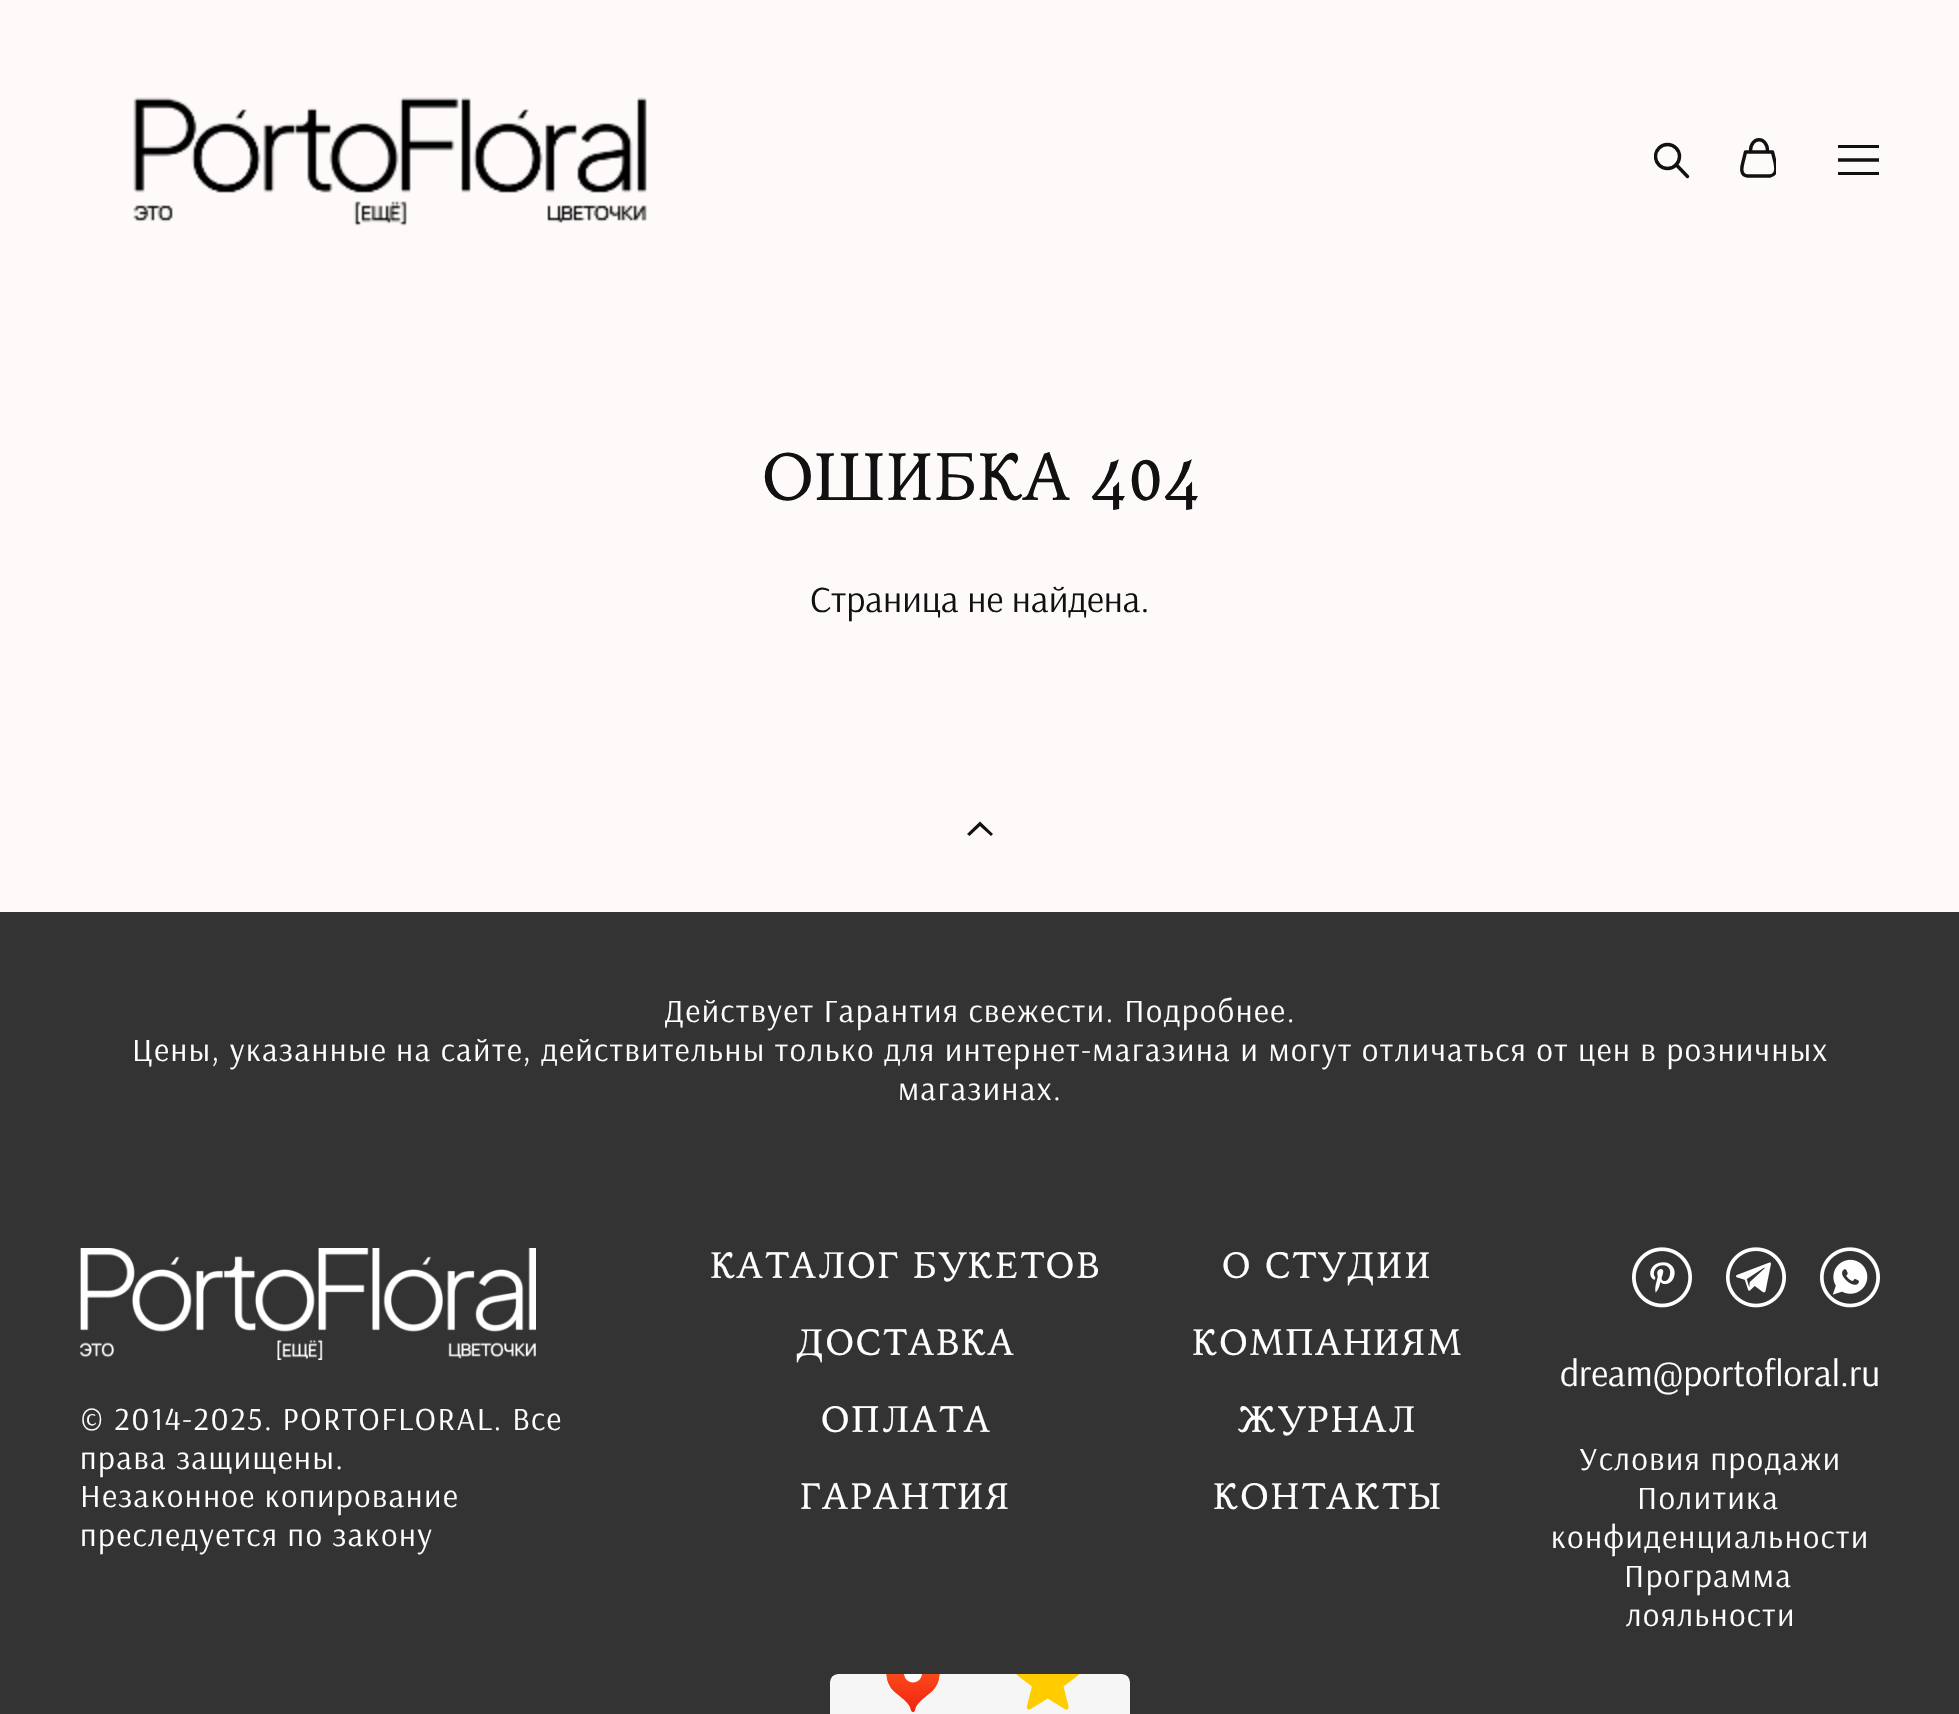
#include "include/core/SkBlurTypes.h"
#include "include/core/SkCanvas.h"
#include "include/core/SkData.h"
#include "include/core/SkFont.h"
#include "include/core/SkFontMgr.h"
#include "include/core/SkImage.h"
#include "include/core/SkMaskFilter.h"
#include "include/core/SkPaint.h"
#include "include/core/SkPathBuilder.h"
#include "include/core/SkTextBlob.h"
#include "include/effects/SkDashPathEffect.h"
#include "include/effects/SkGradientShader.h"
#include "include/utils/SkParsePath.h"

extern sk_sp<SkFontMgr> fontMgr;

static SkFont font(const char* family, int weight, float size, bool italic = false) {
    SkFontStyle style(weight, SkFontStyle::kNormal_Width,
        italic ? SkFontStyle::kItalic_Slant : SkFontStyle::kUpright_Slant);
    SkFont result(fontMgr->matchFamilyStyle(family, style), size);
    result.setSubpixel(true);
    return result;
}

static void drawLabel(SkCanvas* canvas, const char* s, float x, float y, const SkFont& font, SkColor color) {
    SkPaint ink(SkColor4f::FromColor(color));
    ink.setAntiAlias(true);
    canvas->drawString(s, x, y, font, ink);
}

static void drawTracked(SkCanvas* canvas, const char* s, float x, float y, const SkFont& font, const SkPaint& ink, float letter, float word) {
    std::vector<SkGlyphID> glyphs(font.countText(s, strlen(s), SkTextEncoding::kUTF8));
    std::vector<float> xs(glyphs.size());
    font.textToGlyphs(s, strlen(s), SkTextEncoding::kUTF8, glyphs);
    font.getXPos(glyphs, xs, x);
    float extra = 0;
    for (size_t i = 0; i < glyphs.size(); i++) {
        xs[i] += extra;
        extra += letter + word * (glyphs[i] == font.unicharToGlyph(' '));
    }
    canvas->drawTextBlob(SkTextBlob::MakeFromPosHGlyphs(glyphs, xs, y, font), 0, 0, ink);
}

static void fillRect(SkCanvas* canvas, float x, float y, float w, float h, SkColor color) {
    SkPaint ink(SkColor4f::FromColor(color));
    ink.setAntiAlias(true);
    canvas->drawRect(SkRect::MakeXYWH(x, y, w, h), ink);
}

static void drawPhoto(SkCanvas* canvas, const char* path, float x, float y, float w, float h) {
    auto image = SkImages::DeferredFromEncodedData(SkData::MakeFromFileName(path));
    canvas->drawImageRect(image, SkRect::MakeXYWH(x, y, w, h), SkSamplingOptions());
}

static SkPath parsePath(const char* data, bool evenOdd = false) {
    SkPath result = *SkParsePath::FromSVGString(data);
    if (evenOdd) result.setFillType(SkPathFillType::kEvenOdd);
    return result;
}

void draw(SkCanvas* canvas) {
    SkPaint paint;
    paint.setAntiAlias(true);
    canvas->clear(0xFFFFFAFA);
    drawPhoto(canvas, "assets/img1.png", 133, 97, 514, 129);
    canvas->save();
    canvas->clipRect(SkRect::MakeXYWH(1654, 138, 36, 40));
    paint.setStroke(true);
    paint.setStrokeWidth(3.4f);
    paint.setColor(0xFF111111);
    canvas->drawCircle(1667.5f, 156.5f, 12, paint);
    canvas->restore();
    paint.setStrokeCap(SkPaint::kRound_Cap);
    paint.setStrokeJoin(SkPaint::kRound_Join);
    canvas->drawPath(parsePath("M1676 164.5L1687.5 176.5"), paint);
    canvas->save();
    canvas->clipRect(SkRect::MakeXYWH(1740, 138, 36, 40));
    canvas->drawPath(parsePath("M1772.5 152H1745.5L1743 162C1741.5 167.5 1740 175 1747.5 176H1770C1777.5 174.5 1776 167.5 1775 162Z"), paint);
    canvas->restore();
    paint.setStrokeCap(SkPaint::kButt_Cap);
    paint.setStrokeJoin(SkPaint::kMiter_Join);
    canvas->drawPath(parsePath("M1750.5 151C1750.5 136 1767.5 136 1767.5 151"), paint);
    fillRect(canvas, 1838, 145, 41, 3, 0xFF111111);
    canvas->drawPath(parsePath("M1838 160H1879"), paint);
    fillRect(canvas, 1838, 172, 41, 3, 0xFF111111);
    SkFont font1 = font("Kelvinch", 400, 67.5f);
    drawLabel(canvas, "ОШИБКА 404", 762, 500, font1, 0xFF111111);
    SkFont font2 = font("Arsenal", 400, 37);
    drawLabel(canvas, "Страница не найдена.", 810, 612, font2, 0xFF111111);
    paint.setStroke(false);
    canvas->drawPath(parsePath("M993 834L991 836L981.5 827.5L980 826L978.5 827.5L969.5 836L967 834L980 821.5Z", true), paint);
    fillRect(canvas, 0, 912, 1959, 802, 0xFF333333);
    SkFont font3 = font("Arsenal", 400, 32.35f);
    paint.setColor(0xFFFFFFFF);
    drawTracked(canvas, "Действует Гарантия свежести. Подробнее.", 664, 1022, font3, paint, 1.62f, 0);
    drawTracked(canvas, "Цены, указанные на сайте, действительны только для интернет-магазина и могут отличаться от цен в розничных", 132, 1061, font3, paint, 1.62f, 0);
    drawTracked(canvas, "магазинах.", 898, 1100, font3, paint, 1.62f, 0);
    drawPhoto(canvas, "assets/img2.png", 80, 1248, 456, 112);
    drawTracked(canvas, "© 2014-2025. PORTOFLORAL. Все", 80, 1430, font3, paint, 1.62f, 0);
    drawTracked(canvas, "права защищены.", 80, 1469, font3, paint, 1.62f, 0);
    drawTracked(canvas, "Незаконное копирование", 80, 1507, font3, paint, 1.62f, 0);
    drawTracked(canvas, "преследуется по закону", 80, 1546, font3, paint, 1.62f, 0);
    SkFont font4 = font("Kelvinch", 400, 37);
    drawTracked(canvas, "КАТАЛОГ БУКЕТОВ", 710, 1278, font4, paint, 1.8f, 0);
    drawTracked(canvas, "ДОСТАВКА", 796, 1355, font4, paint, 1.8f, 0);
    drawTracked(canvas, "ОПЛАТА", 821, 1432, font4, paint, 1.8f, 0);
    drawTracked(canvas, "ГАРАНТИЯ", 800, 1509, font4, paint, 1.8f, 0);
    drawTracked(canvas, "О СТУДИИ", 1222, 1278, font4, paint, 1.8f, 0);
    drawTracked(canvas, "КОМПАНИЯМ", 1192, 1355, font4, paint, 1.8f, 0);
    drawTracked(canvas, "ЖУРНАЛ", 1237, 1432, font4, paint, 1.8f, 0);
    drawTracked(canvas, "КОНТАКТЫ", 1213, 1509, font4, paint, 1.8f, 0);
    drawPhoto(canvas, "assets/img3.png", 1632, 1247, 60, 61);
    drawPhoto(canvas, "assets/img4.png", 1726, 1247, 60, 61);
    drawPhoto(canvas, "assets/img5.png", 1820, 1247, 60, 61);
    drawLabel(canvas, "dream@portofloral.ru", 1560, 1386, font2, 0xFFFFFFFF);
    drawTracked(canvas, "Условия продажи", 1579, 1470, font3, paint, 1.62f, 0);
    drawTracked(canvas, "Политика", 1637, 1509, font3, paint, 1.62f, 0);
    drawTracked(canvas, "конфиденциальности", 1551, 1548, font3, paint, 1.62f, 0);
    drawTracked(canvas, "Программа", 1624, 1587, font3, paint, 1.62f, 0);
    drawTracked(canvas, "лояльности", 1626, 1626, font3, paint, 1.62f, 0);
    drawPhoto(canvas, "assets/img6.png", 830, 1674, 300, 40);
}
